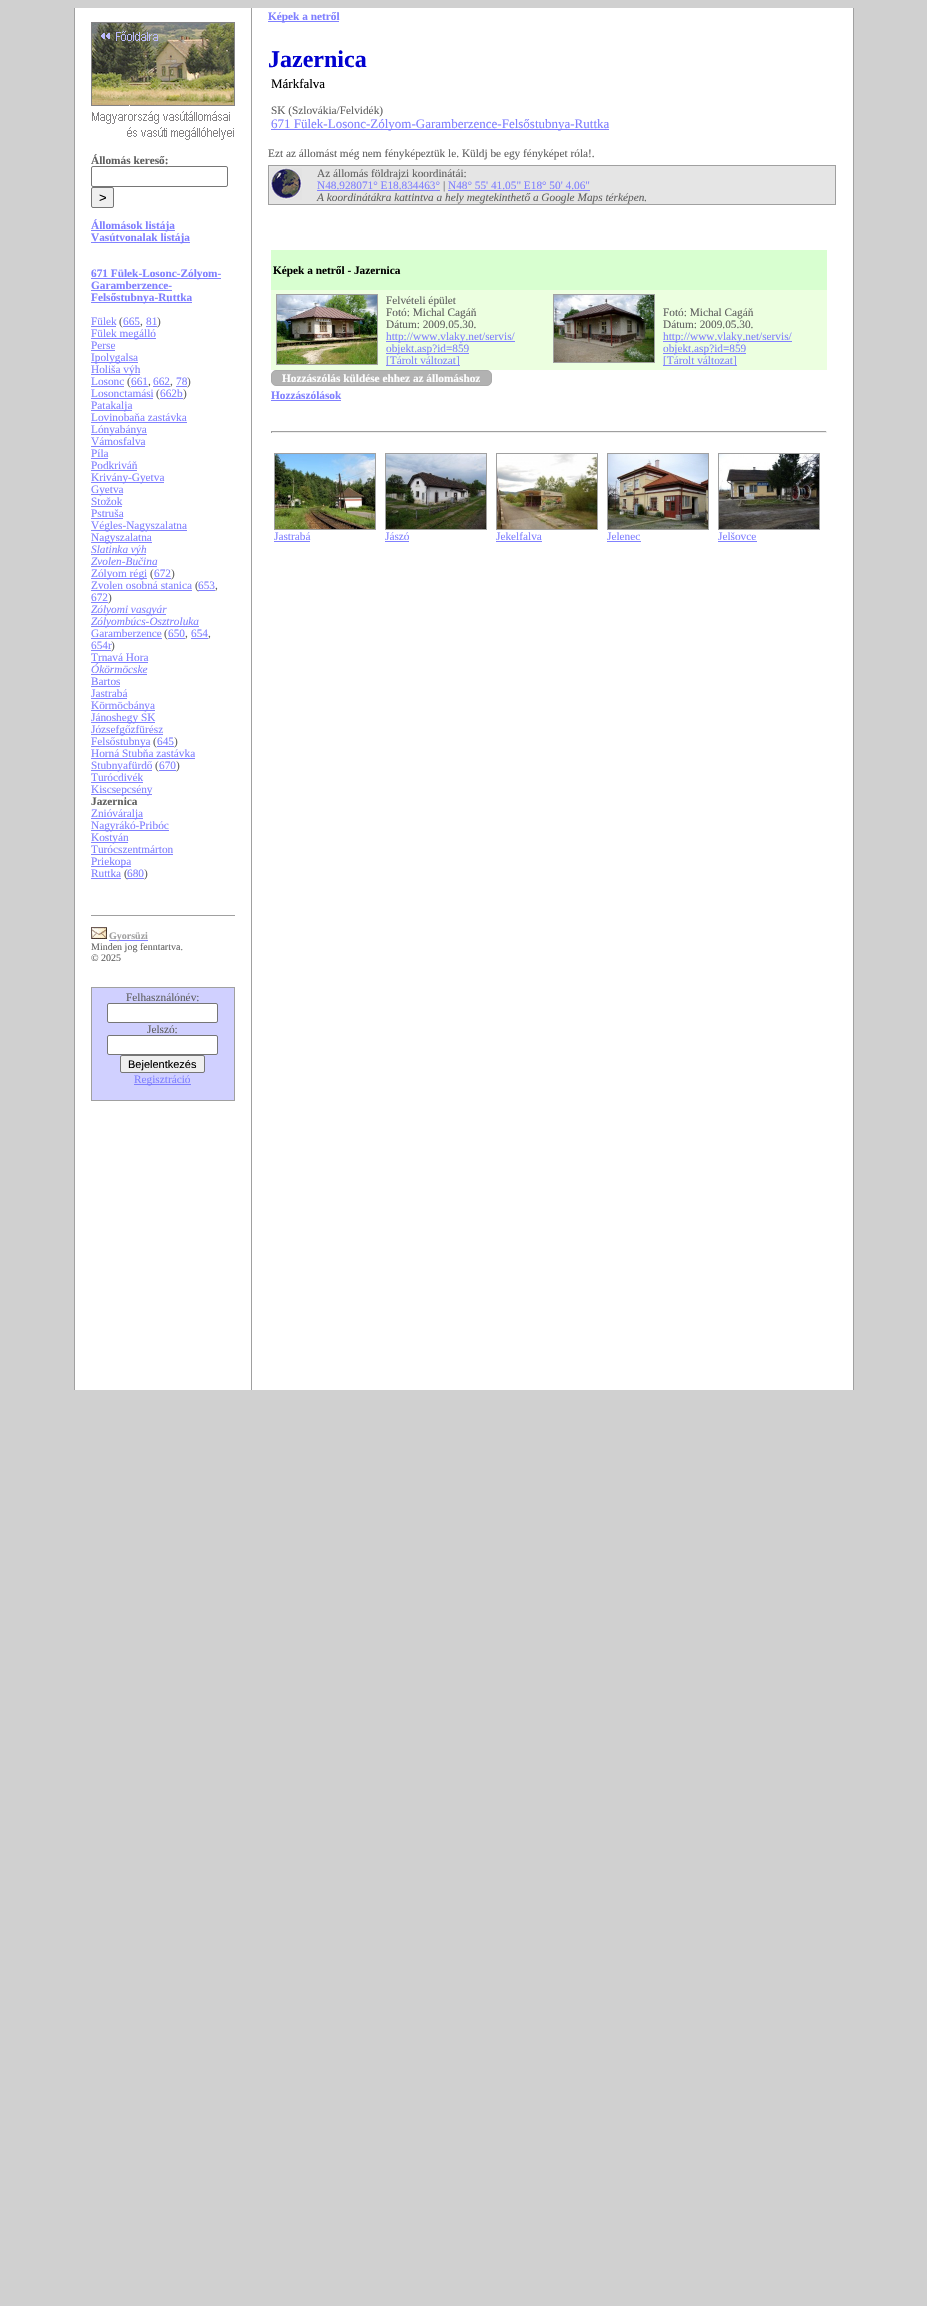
#include "include/core/SkBlurTypes.h"
#include "include/core/SkCanvas.h"
#include "include/core/SkData.h"
#include "include/core/SkFont.h"
#include "include/core/SkFontMgr.h"
#include "include/core/SkImage.h"
#include "include/core/SkMaskFilter.h"
#include "include/core/SkPaint.h"
#include "include/core/SkPathBuilder.h"
#include "include/core/SkTextBlob.h"
#include "include/effects/SkDashPathEffect.h"
#include "include/effects/SkGradientShader.h"
#include "include/utils/SkParsePath.h"

extern sk_sp<SkFontMgr> fontMgr;

static SkFont font(const char* family, int weight, float size, bool italic = false) {
    SkFontStyle style(weight, SkFontStyle::kNormal_Width,
        italic ? SkFontStyle::kItalic_Slant : SkFontStyle::kUpright_Slant);
    SkFont result(fontMgr->matchFamilyStyle(family, style), size);
    result.setSubpixel(true);
    return result;
}

static void drawLabel(SkCanvas* canvas, const char* s, float x, float y, const SkFont& font, SkColor color) {
    SkPaint ink(SkColor4f::FromColor(color));
    ink.setAntiAlias(true);
    canvas->drawString(s, x, y, font, ink);
}

static void fillRect(SkCanvas* canvas, float x, float y, float w, float h, SkColor color) {
    SkPaint ink(SkColor4f::FromColor(color));
    ink.setAntiAlias(true);
    canvas->drawRect(SkRect::MakeXYWH(x, y, w, h), ink);
}

static void drawPhoto(SkCanvas* canvas, const char* path, float x, float y, float w, float h) {
    auto image = SkImages::DeferredFromEncodedData(SkData::MakeFromFileName(path));
    canvas->drawImageRect(image, SkRect::MakeXYWH(x, y, w, h), SkSamplingOptions());
}

void draw(SkCanvas* canvas) {
    SkPaint paint;
    paint.setAntiAlias(true);
    canvas->clear(0xFFD0D0D0);
    fillRect(canvas, 75, 8, 176, 1382, 0xFFFFFFFF);
    fillRect(canvas, 74, 8, 1, 1382, 0xFFA0A0A0);
    fillRect(canvas, 252, 8, 601, 1382, 0xFFFFFFFF);
    fillRect(canvas, 251, 8, 1, 1382, 0xFFA0A0A0);
    fillRect(canvas, 853, 8, 1, 1382, 0xFFA0A0A0);
    drawPhoto(canvas, "assets/img1.png", 91, 22, 144, 118);
    SkFont font1 = font("Liberation Serif", 700, 11.3f);
    drawLabel(canvas, "Állomás kereső:", 91, 164, font1, 0xFF606060);
    paint.setStroke(true);
    paint.setStrokeWidth(1);
    paint.setColor(0xFF767676);
    canvas->drawRoundRect(SkRect::MakeXYWH(91.5f, 166.5f, 136, 20), 1.5f, 1.5f, paint);
    paint.setStroke(false);
    paint.setColor(0xFFEFEFEF);
    canvas->drawRoundRect(SkRect::MakeXYWH(91.5f, 187.5f, 22, 20), 1.5f, 1.5f, paint);
    paint.setStroke(true);
    paint.setColor(0xFF767676);
    canvas->drawRoundRect(SkRect::MakeXYWH(91.5f, 187.5f, 22, 20), 1.5f, 1.5f, paint);
    SkFont font2 = font("Liberation Sans", 400, 13);
    drawLabel(canvas, ">", 99, 202, font2, 0xFF000000);
    fillRect(canvas, 91, 230, 84, 1, 0xFF8080FF);
    drawLabel(canvas, "Állomások listája", 91, 229, font1, 0xFF8080FF);
    fillRect(canvas, 91, 242, 99, 1, 0xFF8080FF);
    drawLabel(canvas, "Vasútvonalak listája", 91, 241, font1, 0xFF8080FF);
    fillRect(canvas, 91, 278, 130, 1, 0xFF8080FF);
    drawLabel(canvas, "671 Fülek-Losonc-Zólyom-", 91, 277, font1, 0xFF8080FF);
    drawLabel(canvas, "Garamberzence-", 91, 289, font1, 0xFF8080FF);
    fillRect(canvas, 91, 290, 81, 1, 0xFF8080FF);
    fillRect(canvas, 91, 302, 101, 1, 0xFF8080FF);
    drawLabel(canvas, "Felsőstubnya-Ruttka", 91, 301, font1, 0xFF8080FF);
    SkFont font3 = font("Liberation Serif", 400, 11.3f);
    drawLabel(canvas, "Fülek", 91, 325, font3, 0xFF8080FF);
    fillRect(canvas, 91, 326, 25, 1, 0xFF8080FF);
    drawLabel(canvas, "(", 119, 325, font3, 0xFF606060);
    drawLabel(canvas, "665", 123, 325, font3, 0xFF8080FF);
    fillRect(canvas, 123, 326, 17, 1, 0xFF8080FF);
    drawLabel(canvas, ",", 140, 325, font3, 0xFF606060);
    drawLabel(canvas, "81", 146, 325, font3, 0xFF8080FF);
    fillRect(canvas, 146, 326, 11, 1, 0xFF8080FF);
    drawLabel(canvas, ")", 157, 325, font3, 0xFF606060);
    fillRect(canvas, 91, 338, 65, 1, 0xFF8080FF);
    drawLabel(canvas, "Fülek megálló", 91, 337, font3, 0xFF8080FF);
    drawLabel(canvas, "Perse", 91, 349, font3, 0xFF8080FF);
    fillRect(canvas, 91, 350, 24, 1, 0xFF8080FF);
    fillRect(canvas, 91, 362, 47, 1, 0xFF8080FF);
    drawLabel(canvas, "Ipolygalsa", 91, 361, font3, 0xFF8080FF);
    fillRect(canvas, 91, 374, 49, 1, 0xFF8080FF);
    drawLabel(canvas, "Holiša výh", 91, 373, font3, 0xFF8080FF);
    drawLabel(canvas, "Losonc", 91, 385, font3, 0xFF8080FF);
    fillRect(canvas, 91, 386, 33, 1, 0xFF8080FF);
    drawLabel(canvas, "(", 127, 385, font3, 0xFF606060);
    drawLabel(canvas, "661", 131, 385, font3, 0xFF8080FF);
    fillRect(canvas, 131, 386, 17, 1, 0xFF8080FF);
    drawLabel(canvas, ",", 148, 385, font3, 0xFF606060);
    drawLabel(canvas, "662", 153, 385, font3, 0xFF8080FF);
    fillRect(canvas, 153, 386, 17, 1, 0xFF8080FF);
    drawLabel(canvas, ",", 170, 385, font3, 0xFF606060);
    drawLabel(canvas, "78", 176, 385, font3, 0xFF8080FF);
    fillRect(canvas, 176, 386, 11, 1, 0xFF8080FF);
    drawLabel(canvas, ")", 187, 385, font3, 0xFF606060);
    drawLabel(canvas, "Losonctamási", 91, 397, font3, 0xFF8080FF);
    fillRect(canvas, 91, 398, 62, 1, 0xFF8080FF);
    drawLabel(canvas, "(", 156, 397, font3, 0xFF606060);
    drawLabel(canvas, "662b", 160, 397, font3, 0xFF8080FF);
    fillRect(canvas, 160, 398, 23, 1, 0xFF8080FF);
    drawLabel(canvas, ")", 183, 397, font3, 0xFF606060);
    fillRect(canvas, 91, 410, 41, 1, 0xFF8080FF);
    drawLabel(canvas, "Patakalja", 91, 409, font3, 0xFF8080FF);
    drawLabel(canvas, "Lovinobaňa zastávka", 91, 421, font3, 0xFF8080FF);
    fillRect(canvas, 91, 422, 96, 1, 0xFF8080FF);
    fillRect(canvas, 91, 434, 56, 1, 0xFF8080FF);
    drawLabel(canvas, "Lónyabánya", 91, 433, font3, 0xFF8080FF);
    drawLabel(canvas, "Vámosfalva", 91, 445, font3, 0xFF8080FF);
    fillRect(canvas, 91, 446, 54, 1, 0xFF8080FF);
    drawLabel(canvas, "Píla", 91, 457, font3, 0xFF8080FF);
    fillRect(canvas, 91, 458, 17, 1, 0xFF8080FF);
    drawLabel(canvas, "Podkriváň", 91, 469, font3, 0xFF8080FF);
    fillRect(canvas, 91, 470, 46, 1, 0xFF8080FF);
    fillRect(canvas, 91, 482, 73, 1, 0xFF8080FF);
    drawLabel(canvas, "Krivány-Gyetva", 91, 481, font3, 0xFF8080FF);
    fillRect(canvas, 91, 494, 32, 1, 0xFF8080FF);
    drawLabel(canvas, "Gyetva", 91, 493, font3, 0xFF8080FF);
    drawLabel(canvas, "Stožok", 91, 505, font3, 0xFF8080FF);
    fillRect(canvas, 91, 506, 31, 1, 0xFF8080FF);
    drawLabel(canvas, "Pstruša", 91, 517, font3, 0xFF8080FF);
    fillRect(canvas, 91, 518, 32, 1, 0xFF8080FF);
    fillRect(canvas, 91, 530, 96, 1, 0xFF8080FF);
    drawLabel(canvas, "Végles-Nagyszalatna", 91, 529, font3, 0xFF8080FF);
    fillRect(canvas, 91, 542, 61, 1, 0xFF8080FF);
    drawLabel(canvas, "Nagyszalatna", 91, 541, font3, 0xFF8080FF);
    fillRect(canvas, 91, 554, 55, 1, 0xFF8080FF);
    SkFont font4 = font("Liberation Serif", 400, 11.3f, true);
    drawLabel(canvas, "Slatinka výh", 91, 553, font4, 0xFF8080FF);
    drawLabel(canvas, "Zvolen-Bučina", 91, 565, font4, 0xFF8080FF);
    fillRect(canvas, 91, 566, 66, 1, 0xFF8080FF);
    fillRect(canvas, 91, 578, 56, 1, 0xFF8080FF);
    drawLabel(canvas, "Zólyom régi", 91, 577, font3, 0xFF8080FF);
    drawLabel(canvas, "(", 150, 577, font3, 0xFF606060);
    drawLabel(canvas, "672", 154, 577, font3, 0xFF8080FF);
    fillRect(canvas, 154, 578, 17, 1, 0xFF8080FF);
    drawLabel(canvas, ")", 171, 577, font3, 0xFF606060);
    drawLabel(canvas, "Zvolen osobná stanica", 91, 589, font3, 0xFF8080FF);
    fillRect(canvas, 91, 590, 101, 1, 0xFF8080FF);
    drawLabel(canvas, "(", 195, 589, font3, 0xFF606060);
    drawLabel(canvas, "653", 198, 589, font3, 0xFF8080FF);
    fillRect(canvas, 198, 590, 17, 1, 0xFF8080FF);
    drawLabel(canvas, ",", 215, 589, font3, 0xFF606060);
    drawLabel(canvas, "672", 91, 601, font3, 0xFF8080FF);
    fillRect(canvas, 91, 602, 17, 1, 0xFF8080FF);
    drawLabel(canvas, ")", 108, 601, font3, 0xFF606060);
    fillRect(canvas, 91, 614, 75, 1, 0xFF8080FF);
    drawLabel(canvas, "Zólyomi vasgyár", 91, 613, font4, 0xFF8080FF);
    fillRect(canvas, 91, 626, 108, 1, 0xFF8080FF);
    drawLabel(canvas, "Zólyombúcs-Osztroluka", 91, 625, font4, 0xFF8080FF);
    drawLabel(canvas, "Garamberzence", 91, 637, font3, 0xFF8080FF);
    fillRect(canvas, 91, 638, 71, 1, 0xFF8080FF);
    drawLabel(canvas, "(", 164, 637, font3, 0xFF606060);
    drawLabel(canvas, "650", 168, 637, font3, 0xFF8080FF);
    fillRect(canvas, 168, 638, 17, 1, 0xFF8080FF);
    drawLabel(canvas, ",", 185, 637, font3, 0xFF606060);
    drawLabel(canvas, "654", 191, 637, font3, 0xFF8080FF);
    fillRect(canvas, 191, 638, 17, 1, 0xFF8080FF);
    drawLabel(canvas, ",", 208, 637, font3, 0xFF606060);
    drawLabel(canvas, "654r", 91, 649, font3, 0xFF8080FF);
    fillRect(canvas, 91, 650, 20, 1, 0xFF8080FF);
    drawLabel(canvas, ")", 111, 649, font3, 0xFF606060);
    drawLabel(canvas, "Trnavá Hora", 91, 661, font3, 0xFF8080FF);
    fillRect(canvas, 91, 662, 57, 1, 0xFF8080FF);
    drawLabel(canvas, "Ókörmöcske", 91, 673, font4, 0xFF8080FF);
    fillRect(canvas, 91, 674, 56, 1, 0xFF8080FF);
    drawLabel(canvas, "Bartos", 91, 685, font3, 0xFF8080FF);
    fillRect(canvas, 91, 686, 29, 1, 0xFF8080FF);
    drawLabel(canvas, "Jastrabá", 91, 697, font3, 0xFF8080FF);
    fillRect(canvas, 91, 698, 36, 1, 0xFF8080FF);
    fillRect(canvas, 91, 710, 64, 1, 0xFF8080FF);
    drawLabel(canvas, "Körmöcbánya", 91, 709, font3, 0xFF8080FF);
    fillRect(canvas, 91, 722, 64, 1, 0xFF8080FF);
    drawLabel(canvas, "Jánoshegy SK", 91, 721, font3, 0xFF8080FF);
    fillRect(canvas, 91, 734, 72, 1, 0xFF8080FF);
    drawLabel(canvas, "Józsefgőzfürész", 91, 733, font3, 0xFF8080FF);
    fillRect(canvas, 91, 746, 59, 1, 0xFF8080FF);
    drawLabel(canvas, "Felsőstubnya", 91, 745, font3, 0xFF8080FF);
    drawLabel(canvas, "(", 153, 745, font3, 0xFF606060);
    drawLabel(canvas, "645", 157, 745, font3, 0xFF8080FF);
    fillRect(canvas, 157, 746, 17, 1, 0xFF8080FF);
    drawLabel(canvas, ")", 174, 745, font3, 0xFF606060);
    drawLabel(canvas, "Horná Stubňa zastávka", 91, 757, font3, 0xFF8080FF);
    fillRect(canvas, 91, 758, 104, 1, 0xFF8080FF);
    fillRect(canvas, 91, 770, 61, 1, 0xFF8080FF);
    drawLabel(canvas, "Stubnyafürdő", 91, 769, font3, 0xFF8080FF);
    drawLabel(canvas, "(", 155, 769, font3, 0xFF606060);
    drawLabel(canvas, "670", 159, 769, font3, 0xFF8080FF);
    fillRect(canvas, 159, 770, 17, 1, 0xFF8080FF);
    drawLabel(canvas, ")", 176, 769, font3, 0xFF606060);
    drawLabel(canvas, "Turócdivék", 91, 781, font3, 0xFF8080FF);
    fillRect(canvas, 91, 782, 52, 1, 0xFF8080FF);
    fillRect(canvas, 91, 794, 61, 1, 0xFF8080FF);
    drawLabel(canvas, "Kiscsepcsény", 91, 793, font3, 0xFF8080FF);
    drawLabel(canvas, "Jazernica", 91, 805, font1, 0xFF606060);
    fillRect(canvas, 91, 818, 52, 1, 0xFF8080FF);
    drawLabel(canvas, "Znióváralja", 91, 817, font3, 0xFF8080FF);
    fillRect(canvas, 91, 830, 78, 1, 0xFF8080FF);
    drawLabel(canvas, "Nagyrákó-Pribóc", 91, 829, font3, 0xFF8080FF);
    fillRect(canvas, 91, 842, 37, 1, 0xFF8080FF);
    drawLabel(canvas, "Kostyán", 91, 841, font3, 0xFF8080FF);
    drawLabel(canvas, "Turócszentmárton", 91, 853, font3, 0xFF8080FF);
    fillRect(canvas, 91, 854, 82, 1, 0xFF8080FF);
    fillRect(canvas, 91, 866, 40, 1, 0xFF8080FF);
    drawLabel(canvas, "Priekopa", 91, 865, font3, 0xFF8080FF);
    drawLabel(canvas, "Ruttka", 91, 877, font3, 0xFF8080FF);
    fillRect(canvas, 91, 878, 30, 1, 0xFF8080FF);
    drawLabel(canvas, "(", 124, 877, font3, 0xFF606060);
    drawLabel(canvas, "680", 127, 877, font3, 0xFF8080FF);
    fillRect(canvas, 127, 878, 17, 1, 0xFF8080FF);
    drawLabel(canvas, ")", 144, 877, font3, 0xFF606060);
    fillRect(canvas, 91, 915, 144, 1, 0xFFA0A0A0);
    drawPhoto(canvas, "assets/img2.png", 91, 927, 16, 12);
    fillRect(canvas, 109, 940, 39, 1, 0xFF8080FF);
    SkFont font5 = font("Liberation Serif", 700, 10);
    drawLabel(canvas, "Gyorsüzi", 109, 939, font5, 0xFFA0A0A0);
    SkFont font6 = font("Liberation Serif", 400, 10);
    drawLabel(canvas, "Minden jog fenntartva.", 91, 950, font6, 0xFF606060);
    drawLabel(canvas, "© 2025", 91, 961, font6, 0xFF606060);
    paint.setStroke(false);
    paint.setColor(0xFFD0D0FF);
    canvas->drawRect(SkRect::MakeXYWH(91.5f, 987.5f, 143, 113), paint);
    paint.setStroke(true);
    paint.setColor(0xFFA0A0A0);
    canvas->drawRect(SkRect::MakeXYWH(91.5f, 987.5f, 143, 113), paint);
    drawLabel(canvas, "Felhasználónév:", 126, 1001, font3, 0xFF606060);
    paint.setStroke(false);
    paint.setColor(0xFFFFFFFF);
    canvas->drawRoundRect(SkRect::MakeXYWH(107.5f, 1003.5f, 110, 19), 1.5f, 1.5f, paint);
    paint.setStroke(true);
    paint.setColor(0xFF767676);
    canvas->drawRoundRect(SkRect::MakeXYWH(107.5f, 1003.5f, 110, 19), 1.5f, 1.5f, paint);
    drawLabel(canvas, "Jelszó:", 147, 1033, font3, 0xFF606060);
    paint.setStroke(false);
    paint.setColor(0xFFFFFFFF);
    canvas->drawRoundRect(SkRect::MakeXYWH(107.5f, 1035.5f, 110, 19), 1.5f, 1.5f, paint);
    paint.setStroke(true);
    paint.setColor(0xFF767676);
    canvas->drawRoundRect(SkRect::MakeXYWH(107.5f, 1035.5f, 110, 19), 1.5f, 1.5f, paint);
    paint.setStroke(false);
    paint.setColor(0xFFEFEFEF);
    canvas->drawRoundRect(SkRect::MakeXYWH(120.5f, 1055.5f, 84, 17), 1.5f, 1.5f, paint);
    paint.setStroke(true);
    paint.setColor(0xFF767676);
    canvas->drawRoundRect(SkRect::MakeXYWH(120.5f, 1055.5f, 84, 17), 1.5f, 1.5f, paint);
    SkFont font7 = font("Liberation Sans", 400, 11);
    drawLabel(canvas, "Bejelentkezés", 128, 1068, font7, 0xFF000000);
    fillRect(canvas, 134, 1084, 57, 1, 0xFF8080FF);
    drawLabel(canvas, "Regisztráció", 134, 1083, font3, 0xFF8080FF);
    fillRect(canvas, 268, 21, 71, 1, 0xFF8080FF);
    drawLabel(canvas, "Képek a netről", 268, 20, font1, 0xFF8080FF);
    SkFont font8 = font("Liberation Serif", 700, 24);
    drawLabel(canvas, "Jazernica", 268, 67, font8, 0xFF0000D0);
    SkFont font9 = font("Liberation Serif", 400, 13);
    drawLabel(canvas, "Márkfalva", 271, 88, font9, 0xFF000000);
    drawLabel(canvas, "SK (Szlovákia/Felvidék)", 271, 114, font3, 0xFF606060);
    fillRect(canvas, 271, 129, 338, 1, 0xFF8080FF);
    drawLabel(canvas, "671 Fülek-Losonc-Zólyom-Garamberzence-Felsőstubnya-Ruttka", 271, 128, font9, 0xFF8080FF);
    drawLabel(canvas, "Ezt az állomást még nem fényképeztük le. Küldj be egy fényképet róla!.", 268, 157, font3, 0xFF606060);
    paint.setStroke(false);
    paint.setColor(0xFFE5E5E5);
    canvas->drawRect(SkRect::MakeXYWH(268.5f, 165.5f, 567, 39), paint);
    paint.setStroke(true);
    paint.setColor(0xFFA0A0A0);
    canvas->drawRect(SkRect::MakeXYWH(268.5f, 165.5f, 567, 39), paint);
    drawPhoto(canvas, "assets/img3.png", 270, 168, 32, 32);
    drawLabel(canvas, "Az állomás földrajzi koordinátái:", 317, 177, font3, 0xFF606060);
    drawLabel(canvas, "N48.928071° E18.834463°", 317, 189, font3, 0xFF8080FF);
    fillRect(canvas, 317, 190, 123, 1, 0xFF8080FF);
    drawLabel(canvas, "|", 443, 189, font3, 0xFF606060);
    drawLabel(canvas, "N48° 55' 41.05\" E18° 50' 4.06\"", 448, 189, font3, 0xFF8080FF);
    fillRect(canvas, 448, 190, 142, 1, 0xFF8080FF);
    drawLabel(canvas, "A koordinátákra kattintva a hely megtekinthető a Google Maps térképen.", 317, 201, font4, 0xFF606060);
    fillRect(canvas, 271, 250, 556, 40, 0xFFD8FFD0);
    drawLabel(canvas, "Képek a netről - Jazernica", 273, 274, font1, 0xFF000000);
    fillRect(canvas, 271, 290, 556, 80, 0xFFECFFE0);
    canvas->drawRect(SkRect::MakeXYWH(276.5f, 294.5f, 101, 70), paint);
    drawPhoto(canvas, "assets/img4.png", 277, 295, 100, 69);
    drawLabel(canvas, "Felvételi épület", 386, 304, font3, 0xFF606060);
    drawLabel(canvas, "Fotó: Michal Cagáň", 386, 316, font3, 0xFF606060);
    drawLabel(canvas, "Dátum: 2009.05.30.", 386, 328, font3, 0xFF606060);
    fillRect(canvas, 386, 341, 99, 1, 0xFF8080FF);
    drawLabel(canvas, "http://www.vlaky.net/servis/", 386, 340, font3, 0xFF8080FF);
    fillRect(canvas, 485, 341, 30, 1, 0xFF8080FF);
    fillRect(canvas, 386, 353, 83, 1, 0xFF8080FF);
    drawLabel(canvas, "objekt.asp?id=859", 386, 352, font3, 0xFF8080FF);
    fillRect(canvas, 386, 365, 74, 1, 0xFF8080FF);
    drawLabel(canvas, "[Tárolt változat]", 386, 364, font3, 0xFF8080FF);
    canvas->drawRect(SkRect::MakeXYWH(553.5f, 294.5f, 101, 68), paint);
    drawPhoto(canvas, "assets/img5.png", 554, 295, 100, 67);
    drawLabel(canvas, "Fotó: Michal Cagáň", 663, 316, font3, 0xFF606060);
    drawLabel(canvas, "Dátum: 2009.05.30.", 663, 328, font3, 0xFF606060);
    fillRect(canvas, 663, 341, 99, 1, 0xFF8080FF);
    drawLabel(canvas, "http://www.vlaky.net/servis/", 663, 340, font3, 0xFF8080FF);
    fillRect(canvas, 762, 341, 30, 1, 0xFF8080FF);
    fillRect(canvas, 663, 353, 83, 1, 0xFF8080FF);
    drawLabel(canvas, "objekt.asp?id=859", 663, 352, font3, 0xFF8080FF);
    fillRect(canvas, 663, 365, 74, 1, 0xFF8080FF);
    drawLabel(canvas, "[Tárolt változat]", 663, 364, font3, 0xFF8080FF);
    paint.setStroke(false);
    paint.setColor(0xFFB2B2B2);
    canvas->drawRoundRect(SkRect::MakeXYWH(271.5f, 370.5f, 220, 15), 4.5f, 4.5f, paint);
    paint.setStroke(true);
    paint.setColor(0xFFAAAAAA);
    canvas->drawRoundRect(SkRect::MakeXYWH(271.5f, 370.5f, 220, 15), 4.5f, 4.5f, paint);
    drawLabel(canvas, "Hozzászólás küldése ehhez az állomáshoz", 282, 382, font1, 0xFFFFFFFF);
    drawLabel(canvas, "Hozzászólások", 271, 399, font1, 0xFF8080FF);
    fillRect(canvas, 271, 400, 70, 1, 0xFF8080FF);
    fillRect(canvas, 271, 431, 556, 1, 0xFF9F9F9F);
    fillRect(canvas, 826, 431, 1, 2, 0xFFEEEEEE);
    fillRect(canvas, 271, 432, 556, 1, 0xFFEEEEEE);
    fillRect(canvas, 271, 431, 1, 2, 0xFF9F9F9F);
    paint.setColor(0xFFA0A0A0);
    canvas->drawRect(SkRect::MakeXYWH(274.5f, 453.5f, 101, 76), paint);
    drawPhoto(canvas, "assets/img6.png", 275, 454, 100, 75);
    drawLabel(canvas, "Jastrabá", 274, 540, font3, 0xFF8080FF);
    fillRect(canvas, 274, 541, 36, 1, 0xFF8080FF);
    canvas->drawRect(SkRect::MakeXYWH(385.5f, 453.5f, 101, 76), paint);
    drawPhoto(canvas, "assets/img7.png", 386, 454, 100, 75);
    drawLabel(canvas, "Jászó", 385, 540, font3, 0xFF8080FF);
    fillRect(canvas, 385, 541, 24, 1, 0xFF8080FF);
    canvas->drawRect(SkRect::MakeXYWH(496.5f, 453.5f, 101, 76), paint);
    drawPhoto(canvas, "assets/img8.png", 497, 454, 100, 75);
    drawLabel(canvas, "Jekelfalva", 496, 540, font3, 0xFF8080FF);
    fillRect(canvas, 496, 541, 46, 1, 0xFF8080FF);
    canvas->drawRect(SkRect::MakeXYWH(607.5f, 453.5f, 101, 76), paint);
    drawPhoto(canvas, "assets/img9.png", 608, 454, 100, 75);
    drawLabel(canvas, "Jelenec", 607, 540, font3, 0xFF8080FF);
    fillRect(canvas, 607, 541, 34, 1, 0xFF8080FF);
    canvas->drawRect(SkRect::MakeXYWH(718.5f, 453.5f, 101, 76), paint);
    drawPhoto(canvas, "assets/img10.png", 719, 454, 100, 75);
    drawLabel(canvas, "Jelšovce", 718, 540, font3, 0xFF8080FF);
    fillRect(canvas, 718, 541, 39, 1, 0xFF8080FF);
}
